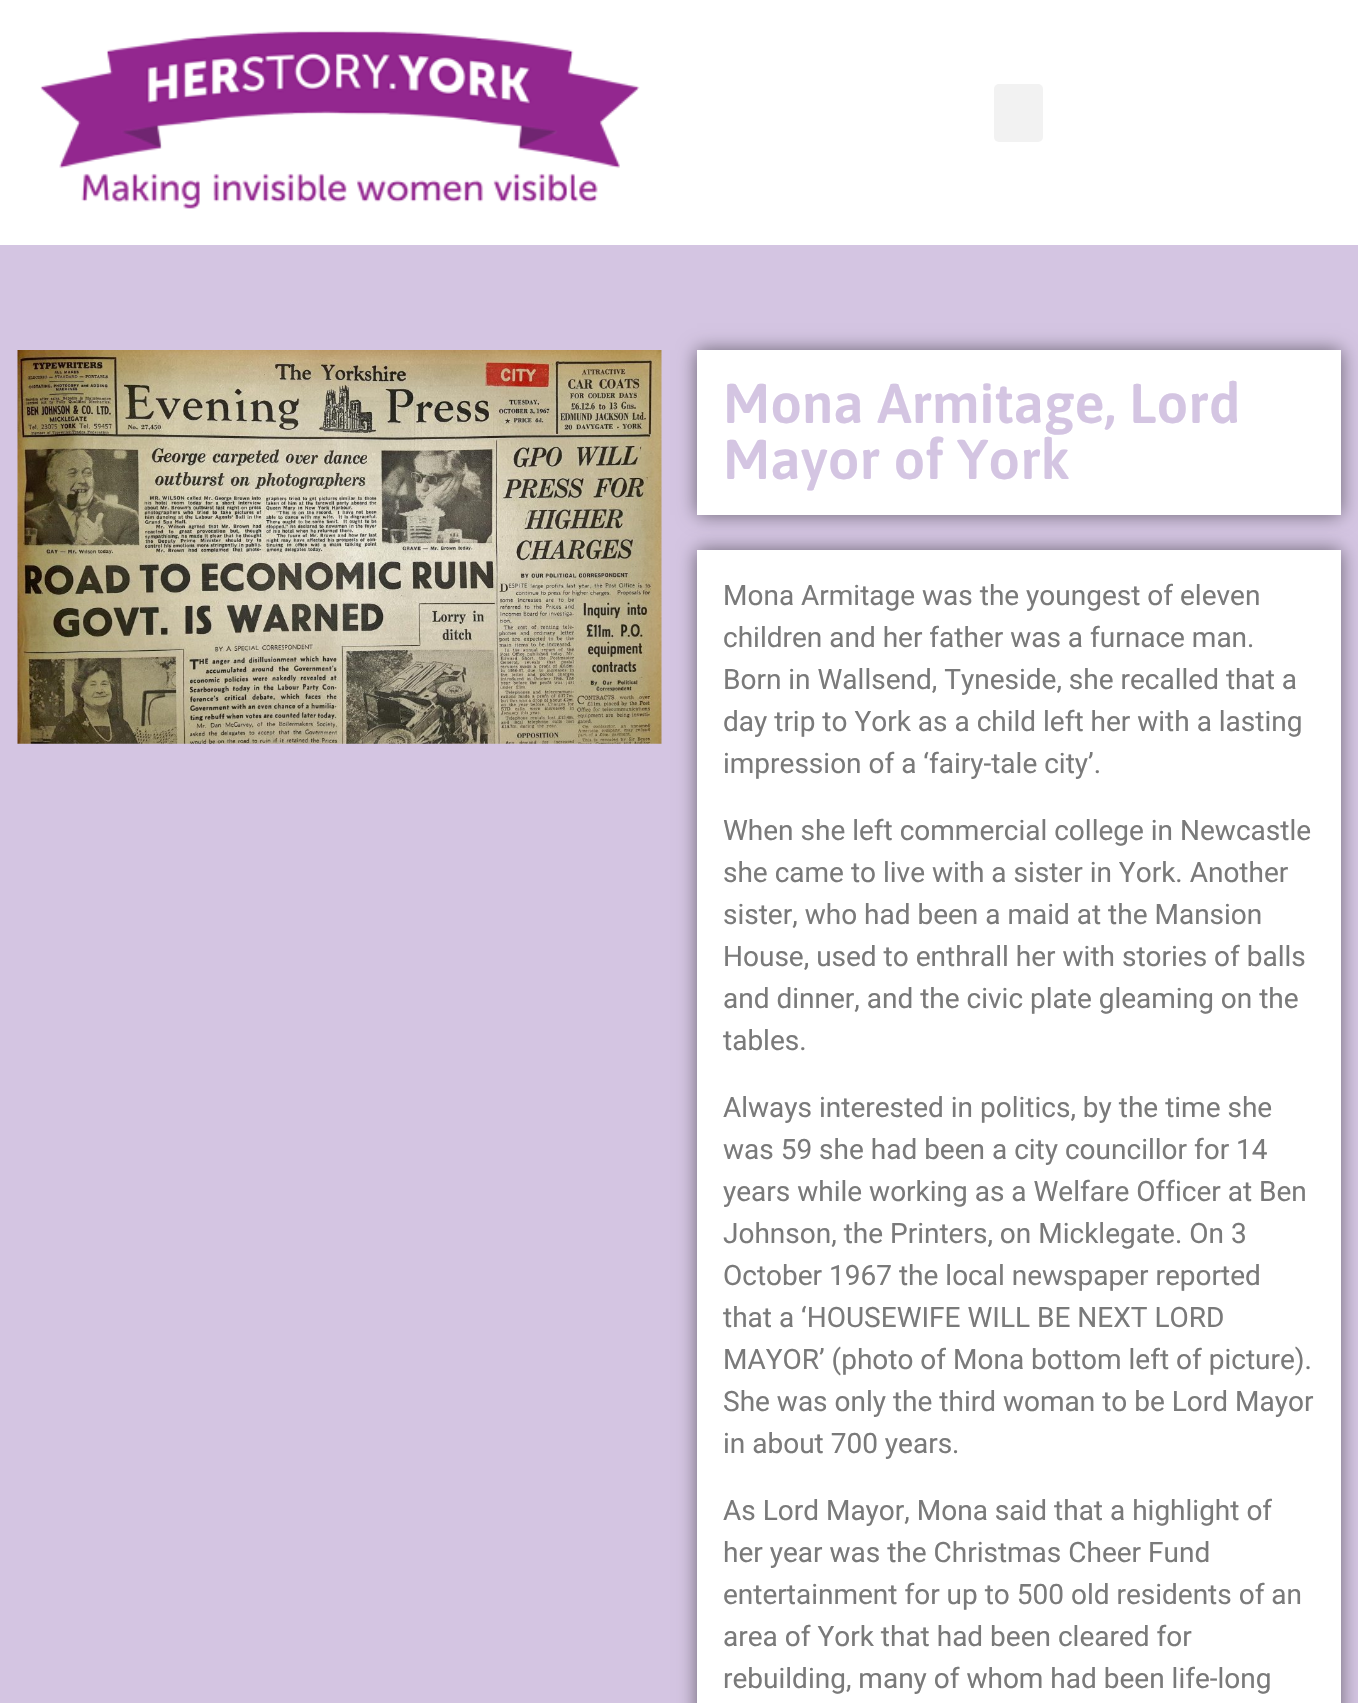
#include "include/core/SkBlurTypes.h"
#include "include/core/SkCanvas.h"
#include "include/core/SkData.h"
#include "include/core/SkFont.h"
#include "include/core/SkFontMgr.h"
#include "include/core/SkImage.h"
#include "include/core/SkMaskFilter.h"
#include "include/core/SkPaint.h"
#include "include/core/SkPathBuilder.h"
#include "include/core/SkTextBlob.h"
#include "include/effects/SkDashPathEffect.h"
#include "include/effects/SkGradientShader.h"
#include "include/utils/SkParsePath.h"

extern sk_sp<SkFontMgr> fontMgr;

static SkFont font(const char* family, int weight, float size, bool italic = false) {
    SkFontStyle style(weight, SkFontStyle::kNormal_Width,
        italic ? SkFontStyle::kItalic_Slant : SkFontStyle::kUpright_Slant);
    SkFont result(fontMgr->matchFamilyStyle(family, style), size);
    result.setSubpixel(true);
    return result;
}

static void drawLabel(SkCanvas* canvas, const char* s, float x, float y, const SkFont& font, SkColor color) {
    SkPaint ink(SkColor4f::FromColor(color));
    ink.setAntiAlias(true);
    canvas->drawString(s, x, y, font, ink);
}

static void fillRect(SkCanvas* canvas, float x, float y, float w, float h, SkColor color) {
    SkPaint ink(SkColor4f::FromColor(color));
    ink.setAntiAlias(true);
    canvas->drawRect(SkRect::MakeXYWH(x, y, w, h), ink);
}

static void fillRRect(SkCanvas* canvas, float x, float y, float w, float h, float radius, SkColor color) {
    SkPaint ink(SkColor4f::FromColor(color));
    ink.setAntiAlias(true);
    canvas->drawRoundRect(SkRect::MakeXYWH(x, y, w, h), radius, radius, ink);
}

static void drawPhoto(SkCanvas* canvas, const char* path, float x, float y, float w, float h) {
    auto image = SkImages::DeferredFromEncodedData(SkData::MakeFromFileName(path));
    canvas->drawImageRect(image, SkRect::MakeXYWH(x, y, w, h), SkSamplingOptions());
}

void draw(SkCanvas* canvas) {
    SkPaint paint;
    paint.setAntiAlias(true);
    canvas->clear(0xFFFFFFFF);
    drawPhoto(canvas, "assets/img1.png", 40, 30, 600, 179);
    fillRRect(canvas, 994, 84, 49, 58, 5, 0xFFF2F2F2);
    fillRect(canvas, 0, 245, 1358, 1458, 0xFFD4C5E2);
    drawPhoto(canvas, "assets/img2.png", 17, 350, 645, 394);
    paint.setColor(0x80000000);
    paint.setMaskFilter(SkMaskFilter::MakeBlur(kNormal_SkBlurStyle, 9));
    canvas->drawRect(SkRect::MakeXYWH(697, 350, 644, 165), paint);
    paint.setMaskFilter(nullptr);
    fillRect(canvas, 697, 350, 644, 165, 0xFFFFFFFF);
    SkFont font1 = font("Asap", 600, 56);
    drawLabel(canvas, "Mona Armitage, Lord", 723, 423, font1, 0xFFD4C5E2);
    drawLabel(canvas, "Mayor of York", 723, 479, font1, 0xFFD4C5E2);
    paint.setMaskFilter(SkMaskFilter::MakeBlur(kNormal_SkBlurStyle, 9));
    canvas->drawRect(SkRect::MakeXYWH(697, 550, 644, 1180), paint);
    paint.setMaskFilter(nullptr);
    fillRect(canvas, 697, 550, 644, 1153, 0xFFFFFFFF);
    SkFont font2 = font("Roboto", 400, 28);
    drawLabel(canvas, "Mona Armitage was the youngest of eleven", 723, 605, font2, 0xFF7A7A7A);
    drawLabel(canvas, "children and her father was a furnace man.", 723, 647, font2, 0xFF7A7A7A);
    drawLabel(canvas, "Born in Wallsend, Tyneside, she recalled that a", 723, 689, font2, 0xFF7A7A7A);
    drawLabel(canvas, "day trip to York as a child left her with a lasting", 723, 731, font2, 0xFF7A7A7A);
    drawLabel(canvas, "impression of a ‘fairy-tale city’.", 723, 773, font2, 0xFF7A7A7A);
    drawLabel(canvas, "When she left commercial college in Newcastle", 723, 840, font2, 0xFF7A7A7A);
    drawLabel(canvas, "she came to live with a sister in York. Another", 723, 882, font2, 0xFF7A7A7A);
    drawLabel(canvas, "sister, who had been a maid at the Mansion", 723, 924, font2, 0xFF7A7A7A);
    drawLabel(canvas, "House, used to enthrall her with stories of balls", 723, 966, font2, 0xFF7A7A7A);
    drawLabel(canvas, "and dinner, and the civic plate gleaming on the", 723, 1008, font2, 0xFF7A7A7A);
    drawLabel(canvas, "tables.", 723, 1050, font2, 0xFF7A7A7A);
    drawLabel(canvas, "Always interested in politics, by the time she", 723, 1117, font2, 0xFF7A7A7A);
    drawLabel(canvas, "was 59 she had been a city councillor for 14", 723, 1159, font2, 0xFF7A7A7A);
    drawLabel(canvas, "years while working as a Welfare Officer at Ben", 723, 1201, font2, 0xFF7A7A7A);
    drawLabel(canvas, "Johnson, the Printers, on Micklegate. On 3", 723, 1243, font2, 0xFF7A7A7A);
    drawLabel(canvas, "October 1967 the local newspaper reported", 723, 1285, font2, 0xFF7A7A7A);
    drawLabel(canvas, "that a ‘HOUSEWIFE WILL BE NEXT LORD", 723, 1327, font2, 0xFF7A7A7A);
    drawLabel(canvas, "MAYOR’ (photo of Mona bottom left of picture).", 723, 1369, font2, 0xFF7A7A7A);
    drawLabel(canvas, "She was only the third woman to be Lord Mayor", 723, 1411, font2, 0xFF7A7A7A);
    drawLabel(canvas, "in about 700 years.", 723, 1453, font2, 0xFF7A7A7A);
    drawLabel(canvas, "As Lord Mayor, Mona said that a highlight of", 723, 1520, font2, 0xFF7A7A7A);
    drawLabel(canvas, "her year was the Christmas Cheer Fund", 723, 1562, font2, 0xFF7A7A7A);
    drawLabel(canvas, "entertainment for up to 500 old residents of an", 723, 1604, font2, 0xFF7A7A7A);
    drawLabel(canvas, "area of York that had been cleared for", 723, 1646, font2, 0xFF7A7A7A);
    drawLabel(canvas, "rebuilding, many of whom had been life-long", 723, 1688, font2, 0xFF7A7A7A);
}
